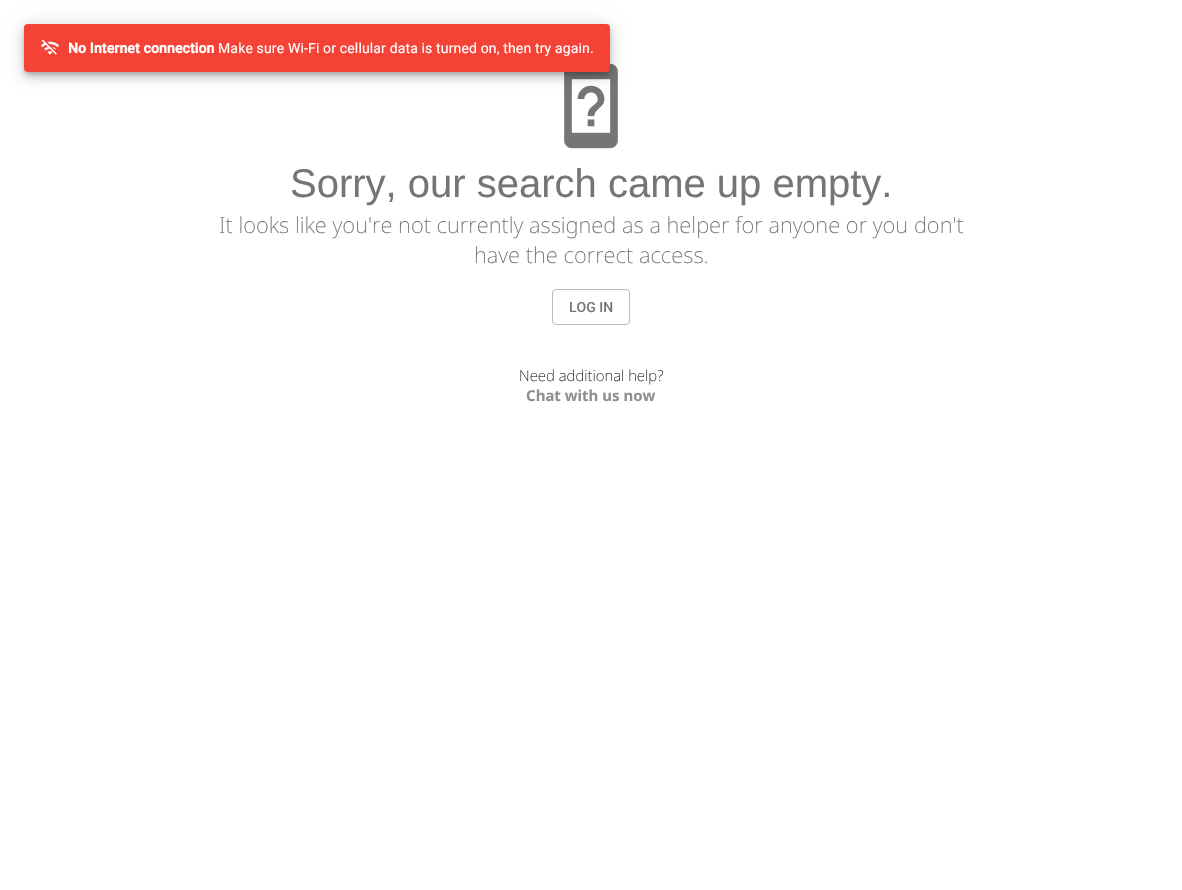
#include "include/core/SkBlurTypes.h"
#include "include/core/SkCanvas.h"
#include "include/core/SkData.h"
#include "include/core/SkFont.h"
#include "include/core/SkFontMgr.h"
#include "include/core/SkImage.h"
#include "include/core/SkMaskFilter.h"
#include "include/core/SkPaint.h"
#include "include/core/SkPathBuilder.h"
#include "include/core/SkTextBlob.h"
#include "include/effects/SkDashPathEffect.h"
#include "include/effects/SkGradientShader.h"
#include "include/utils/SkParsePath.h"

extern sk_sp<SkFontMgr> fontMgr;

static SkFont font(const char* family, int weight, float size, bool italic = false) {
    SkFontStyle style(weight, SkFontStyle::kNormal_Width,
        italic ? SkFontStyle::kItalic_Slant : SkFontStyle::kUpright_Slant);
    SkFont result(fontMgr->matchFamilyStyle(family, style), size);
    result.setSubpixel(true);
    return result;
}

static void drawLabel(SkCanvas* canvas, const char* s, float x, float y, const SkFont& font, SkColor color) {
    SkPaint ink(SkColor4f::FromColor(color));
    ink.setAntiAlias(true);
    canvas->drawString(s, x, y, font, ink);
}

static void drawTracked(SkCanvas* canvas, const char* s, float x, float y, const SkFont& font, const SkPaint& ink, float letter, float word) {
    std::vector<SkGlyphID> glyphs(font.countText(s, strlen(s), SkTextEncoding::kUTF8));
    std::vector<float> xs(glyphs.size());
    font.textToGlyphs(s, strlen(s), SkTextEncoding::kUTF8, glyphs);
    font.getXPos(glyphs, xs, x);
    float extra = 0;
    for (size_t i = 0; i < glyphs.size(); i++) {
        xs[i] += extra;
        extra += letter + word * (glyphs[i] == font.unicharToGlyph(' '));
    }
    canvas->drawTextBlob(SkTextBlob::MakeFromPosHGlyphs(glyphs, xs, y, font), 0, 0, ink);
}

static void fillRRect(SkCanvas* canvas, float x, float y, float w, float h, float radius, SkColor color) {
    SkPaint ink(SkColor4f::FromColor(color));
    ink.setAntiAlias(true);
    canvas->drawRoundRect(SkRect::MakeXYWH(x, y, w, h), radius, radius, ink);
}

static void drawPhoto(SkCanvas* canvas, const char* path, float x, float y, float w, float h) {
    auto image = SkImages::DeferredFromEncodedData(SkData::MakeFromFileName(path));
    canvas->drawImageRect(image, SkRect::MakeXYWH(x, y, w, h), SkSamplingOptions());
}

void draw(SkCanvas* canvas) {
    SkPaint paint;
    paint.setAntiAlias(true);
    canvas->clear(0xFFFFFFFF);
    drawPhoto(canvas, "assets/img2.png", 564, 63, 54, 86);
    paint.setColor(0x1F000000);
    paint.setMaskFilter(SkMaskFilter::MakeBlur(kNormal_SkBlurStyle, 9));
    canvas->drawRoundRect(SkRect::MakeXYWH(24, 25, 586, 48), 4, 4, paint);
    paint.setMaskFilter(nullptr);
    paint.setColor(0x24000000);
    paint.setMaskFilter(SkMaskFilter::MakeBlur(kNormal_SkBlurStyle, 5));
    canvas->drawRoundRect(SkRect::MakeXYWH(24, 30, 586, 48), 4, 4, paint);
    paint.setMaskFilter(nullptr);
    paint.setColor(0x33000000);
    paint.setMaskFilter(SkMaskFilter::MakeBlur(kNormal_SkBlurStyle, 2.5f));
    canvas->drawRoundRect(SkRect::MakeXYWH(25, 28, 584, 46), 3, 3, paint);
    paint.setMaskFilter(nullptr);
    fillRRect(canvas, 24, 24, 586, 48, 4, 0xFFF44336);
    drawPhoto(canvas, "assets/img1.png", 40, 39, 20, 16);
    SkFont font1 = font("Roboto", 700, 14);
    paint.setColor(0xFFFFFFFF);
    drawTracked(canvas, "No Internet connection", 68, 53, font1, paint, 0.15f, 0);
    SkFont font2 = font("Roboto", 400, 14);
    drawTracked(canvas, "Make sure Wi-Fi or cellular data is turned on, then try again.", 218, 53, font2, paint, 0.15f, 0);
    SkFont font3 = font("Liberation Sans", 400, 40);
    drawLabel(canvas, "Sorry, our search came up empty.", 290, 197, font3, 0xFF757575);
    SkFont font4 = font("Noto Sans", 200, 22);
    drawLabel(canvas, "It looks like you're not currently assigned as a helper for anyone or you don't", 219, 233, font4, 0xFF757575);
    drawLabel(canvas, "have the correct access.", 474, 263, font4, 0xFF757575);
    paint.setStroke(true);
    paint.setStrokeWidth(1);
    paint.setColor(0xFFBABABA);
    canvas->drawRoundRect(SkRect::MakeXYWH(552.5f, 289.5f, 77, 35), 3.5f, 3.5f, paint);
    SkFont font5 = font("Roboto", 500, 14);
    drawLabel(canvas, "LOG IN", 569, 312, font5, 0xFF757575);
    SkFont font6 = font("Noto Sans", 200, 15);
    drawLabel(canvas, "Need additional help?", 519, 381, font6, 0xFF212121);
    SkFont font7 = font("Noto Sans", 700, 15);
    drawLabel(canvas, "Chat with us now", 526, 401, font7, 0xFF909090);
}
